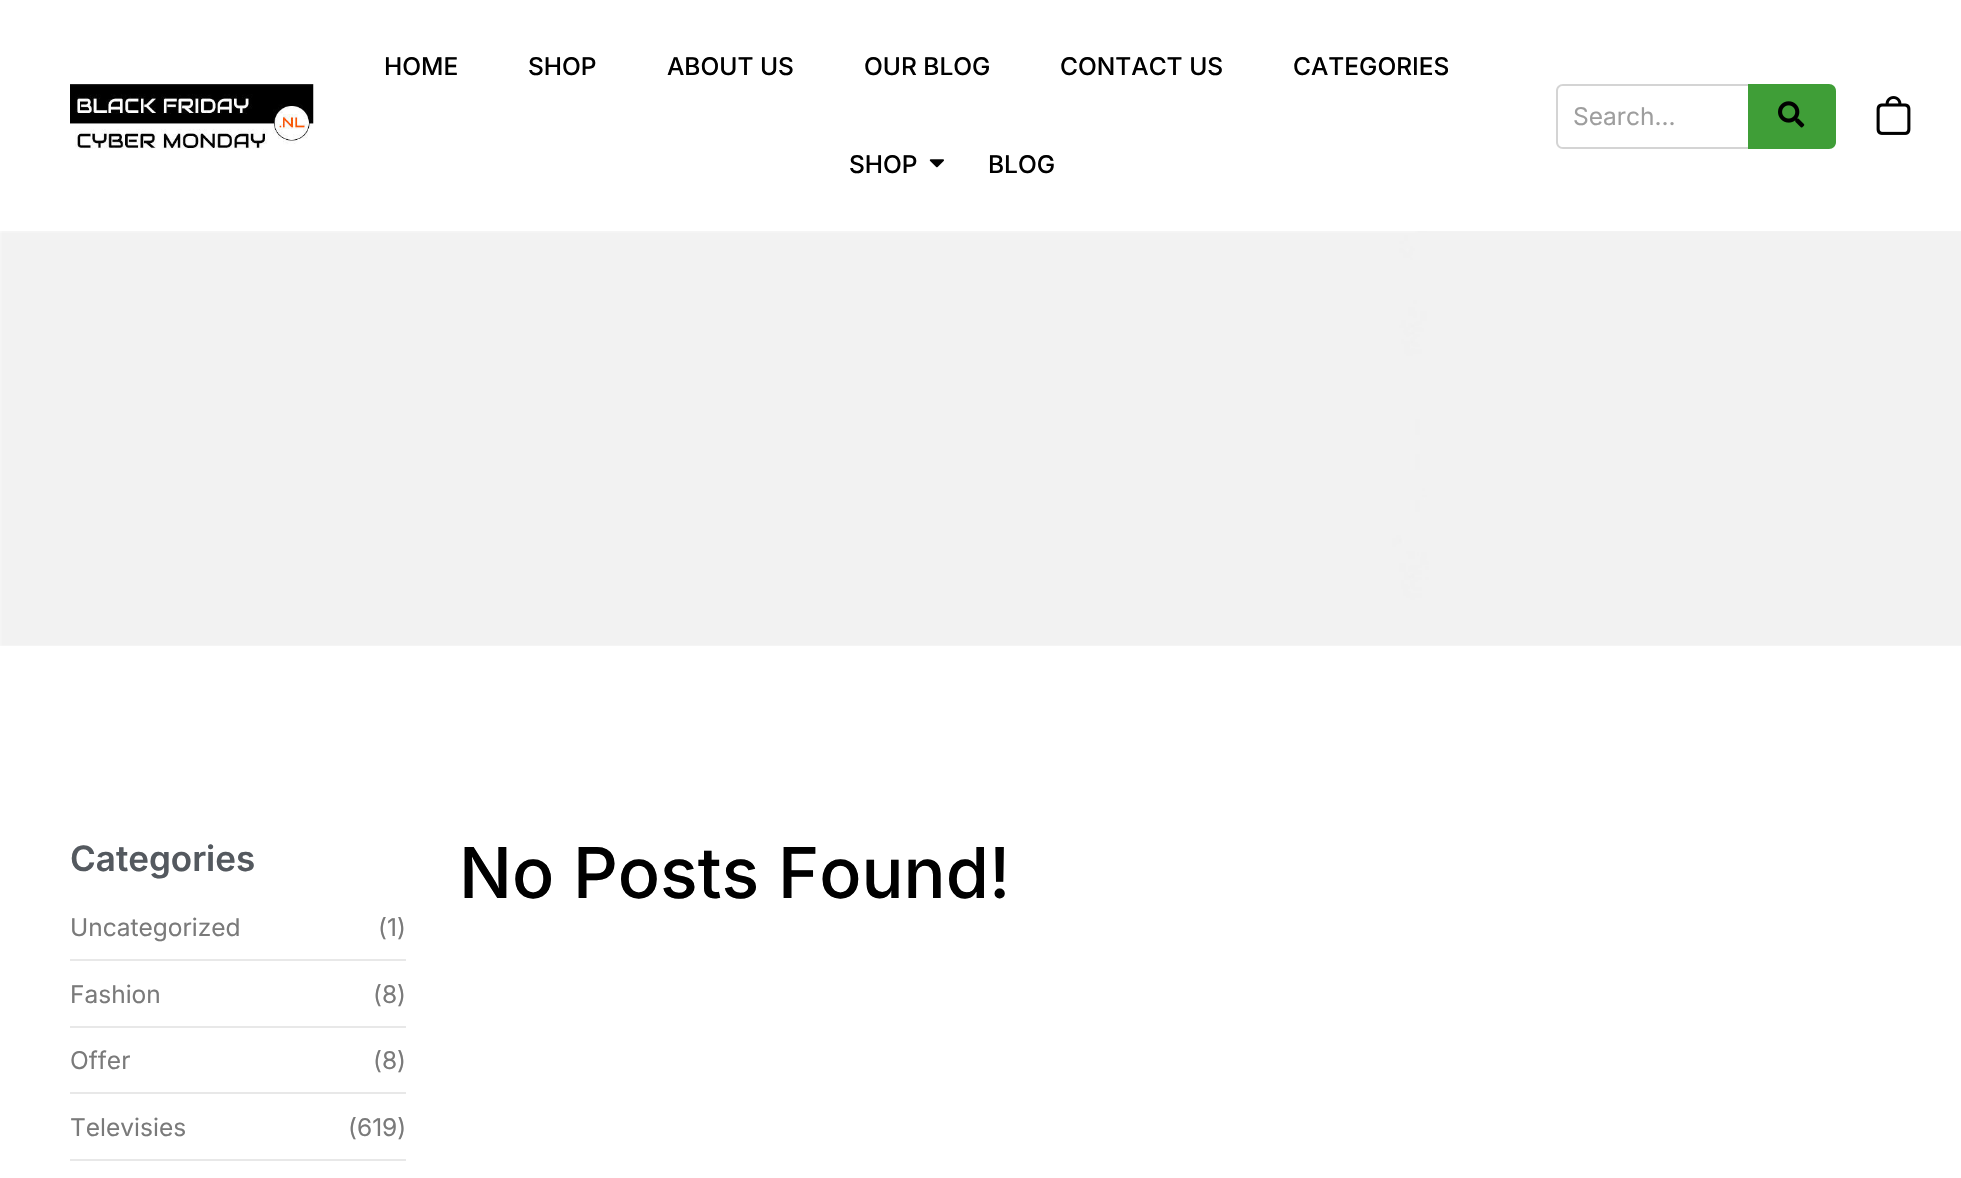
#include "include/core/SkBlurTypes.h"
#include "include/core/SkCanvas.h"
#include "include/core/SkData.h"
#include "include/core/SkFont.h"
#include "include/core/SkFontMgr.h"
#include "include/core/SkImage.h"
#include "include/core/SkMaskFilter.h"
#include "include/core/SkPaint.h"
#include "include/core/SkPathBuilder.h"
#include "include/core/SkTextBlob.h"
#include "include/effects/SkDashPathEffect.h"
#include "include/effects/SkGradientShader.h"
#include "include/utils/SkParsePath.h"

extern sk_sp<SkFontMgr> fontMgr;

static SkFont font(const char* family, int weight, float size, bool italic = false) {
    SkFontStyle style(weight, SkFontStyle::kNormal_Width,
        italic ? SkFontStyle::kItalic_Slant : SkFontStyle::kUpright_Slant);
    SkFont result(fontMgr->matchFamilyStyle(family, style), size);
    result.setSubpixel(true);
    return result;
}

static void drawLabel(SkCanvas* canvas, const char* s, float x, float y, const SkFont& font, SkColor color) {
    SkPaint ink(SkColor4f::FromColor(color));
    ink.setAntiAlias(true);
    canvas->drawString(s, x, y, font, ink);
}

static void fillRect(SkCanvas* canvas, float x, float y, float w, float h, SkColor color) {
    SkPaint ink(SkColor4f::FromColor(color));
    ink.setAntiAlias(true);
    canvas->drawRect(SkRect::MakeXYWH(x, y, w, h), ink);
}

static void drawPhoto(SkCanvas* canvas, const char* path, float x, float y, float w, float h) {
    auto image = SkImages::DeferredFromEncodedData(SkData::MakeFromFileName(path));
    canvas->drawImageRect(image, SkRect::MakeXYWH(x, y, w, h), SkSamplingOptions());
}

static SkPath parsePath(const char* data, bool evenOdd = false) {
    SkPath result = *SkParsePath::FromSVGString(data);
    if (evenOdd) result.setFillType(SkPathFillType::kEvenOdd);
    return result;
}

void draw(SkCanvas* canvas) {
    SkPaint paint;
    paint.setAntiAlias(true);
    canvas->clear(0xFFFFFFFF);
    drawPhoto(canvas, "assets/img1.png", 70, 84, 244, 65);
    SkFont font1 = font("Inter", 500, 24.5f);
    drawLabel(canvas, "HOME", 384, 75, font1, 0xFF000000);
    drawLabel(canvas, "SHOP", 528, 75, font1, 0xFF000000);
    drawLabel(canvas, "ABOUT US", 667, 75, font1, 0xFF000000);
    drawLabel(canvas, "OUR BLOG", 864, 75, font1, 0xFF000000);
    drawLabel(canvas, "CONTACT US", 1060, 75, font1, 0xFF000000);
    drawLabel(canvas, "CATEGORIES", 1293, 75, font1, 0xFF000000);
    drawLabel(canvas, "SHOP", 849, 173, font1, 0xFF000000);
    drawPhoto(canvas, "assets/img2.png", 929, 159, 15, 9);
    drawLabel(canvas, "BLOG", 988, 173, font1, 0xFF000000);
    paint.setColor(0xFFD4D4D4);
    canvas->drawPath(parsePath("M1563 84H1748V149H1563C1559 149 1556 146 1556 142V91C1556 87 1559 84 1563 84ZM1563 86H1748V147H1563C1560 147 1558 145 1558 142V91C1558 88 1560 86 1563 86Z", true), paint);
    SkFont font2 = font("Inter", 400, 24.5f);
    drawLabel(canvas, "Search...", 1573, 125, font2, 0xFF9E9E9E);
    paint.setColor(0xFF3F9E37);
    canvas->drawPath(parsePath("M1748 84H1829C1833 84 1836 87 1836 91V142C1836 146 1833 149 1829 149H1748Z"), paint);
    drawPhoto(canvas, "assets/img3.png", 1778, 101, 27, 27);
    drawPhoto(canvas, "assets/img4.png", 1876, 96, 35, 39);
    drawPhoto(canvas, "assets/img5.png", 0, 231, 1961, 415);
    SkFont font3 = font("Inter", 600, 35);
    drawLabel(canvas, "Categories", 70, 871, font3, 0xFF54595F);
    fillRect(canvas, 70, 959, 336, 2, 0xFFE8E8E8);
    drawLabel(canvas, "Uncategorized", 70, 936, font2, 0xFF7A7A7A);
    drawLabel(canvas, "(1)", 378, 936, font2, 0xFF7A7A7A);
    fillRect(canvas, 70, 1026, 336, 2, 0xFFE8E8E8);
    drawLabel(canvas, "Fashion", 70, 1003, font2, 0xFF7A7A7A);
    drawLabel(canvas, "(8)", 373, 1003, font2, 0xFF7A7A7A);
    fillRect(canvas, 70, 1092, 336, 2, 0xFFE8E8E8);
    drawLabel(canvas, "Offer", 70, 1069, font2, 0xFF7A7A7A);
    drawLabel(canvas, "(8)", 373, 1069, font2, 0xFF7A7A7A);
    fillRect(canvas, 70, 1159, 336, 2, 0xFFE8E8E8);
    drawLabel(canvas, "Televisies", 70, 1136, font2, 0xFF7A7A7A);
    drawLabel(canvas, "(619)", 348, 1136, font2, 0xFF7A7A7A);
    SkFont font4 = font("Inter", 500, 70);
    drawLabel(canvas, "No Posts Found!", 459, 898, font4, 0xFF000000);
}
